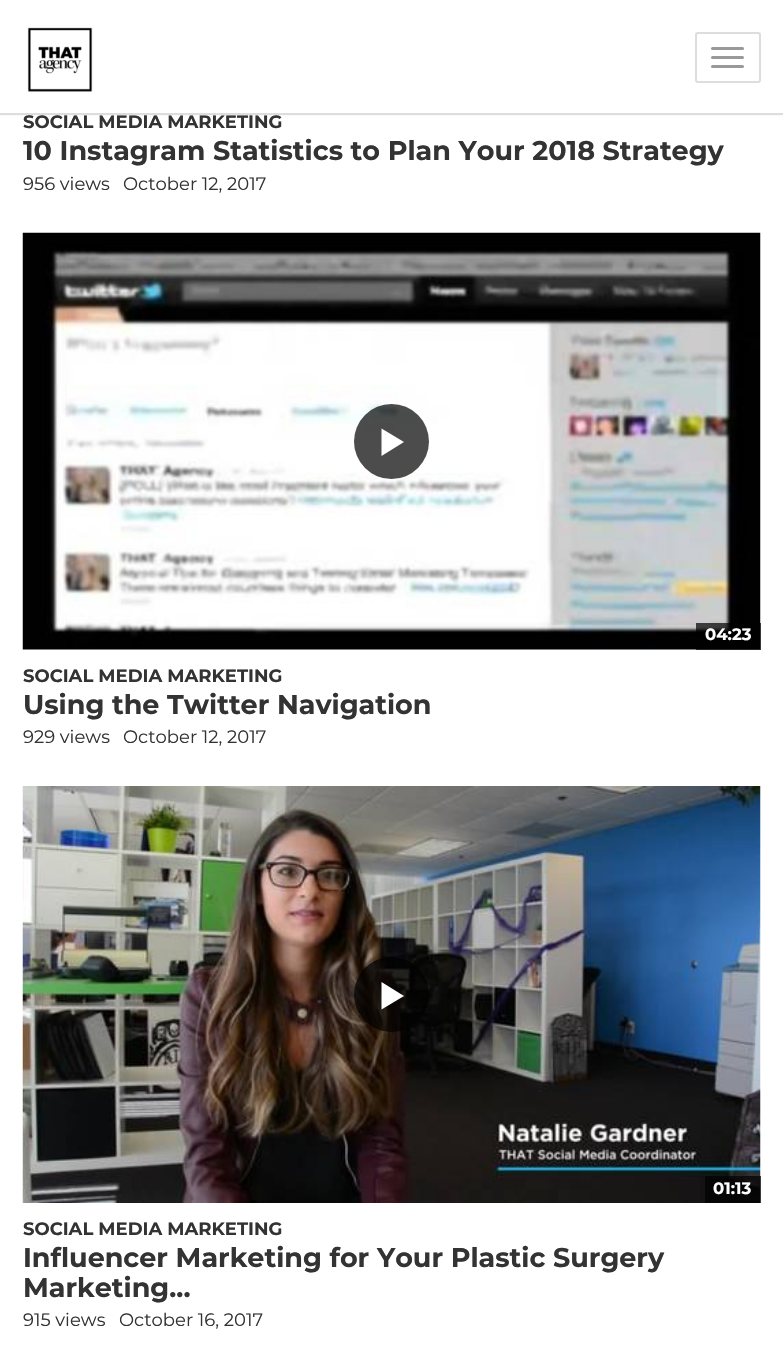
#include "include/core/SkBlurTypes.h"
#include "include/core/SkCanvas.h"
#include "include/core/SkData.h"
#include "include/core/SkFont.h"
#include "include/core/SkFontMgr.h"
#include "include/core/SkImage.h"
#include "include/core/SkMaskFilter.h"
#include "include/core/SkPaint.h"
#include "include/core/SkPathBuilder.h"
#include "include/core/SkTextBlob.h"
#include "include/effects/SkDashPathEffect.h"
#include "include/effects/SkGradientShader.h"
#include "include/utils/SkParsePath.h"

extern sk_sp<SkFontMgr> fontMgr;

static SkFont font(const char* family, int weight, float size, bool italic = false) {
    SkFontStyle style(weight, SkFontStyle::kNormal_Width,
        italic ? SkFontStyle::kItalic_Slant : SkFontStyle::kUpright_Slant);
    SkFont result(fontMgr->matchFamilyStyle(family, style), size);
    result.setSubpixel(true);
    return result;
}

static void drawLabel(SkCanvas* canvas, const char* s, float x, float y, const SkFont& font, SkColor color) {
    SkPaint ink(SkColor4f::FromColor(color));
    ink.setAntiAlias(true);
    canvas->drawString(s, x, y, font, ink);
}

static void fillRect(SkCanvas* canvas, float x, float y, float w, float h, SkColor color) {
    SkPaint ink(SkColor4f::FromColor(color));
    ink.setAntiAlias(true);
    canvas->drawRect(SkRect::MakeXYWH(x, y, w, h), ink);
}

static void fillRRect(SkCanvas* canvas, float x, float y, float w, float h, float radius, SkColor color) {
    SkPaint ink(SkColor4f::FromColor(color));
    ink.setAntiAlias(true);
    canvas->drawRoundRect(SkRect::MakeXYWH(x, y, w, h), radius, radius, ink);
}

static void drawPhoto(SkCanvas* canvas, const char* path, float x, float y, float w, float h) {
    auto image = SkImages::DeferredFromEncodedData(SkData::MakeFromFileName(path));
    canvas->drawImageRect(image, SkRect::MakeXYWH(x, y, w, h), SkSamplingOptions());
}

static SkPath parsePath(const char* data, bool evenOdd = false) {
    SkPath result = *SkParsePath::FromSVGString(data);
    if (evenOdd) result.setFillType(SkPathFillType::kEvenOdd);
    return result;
}

void draw(SkCanvas* canvas) {
    SkPaint paint;
    paint.setAntiAlias(true);
    canvas->clear(0xFFFFFFFF);
    paint.setColor(0xFFDDDDDD);
    paint.setMaskFilter(SkMaskFilter::MakeBlur(kNormal_SkBlurStyle, 1.5f));
    canvas->drawRect(SkRect::MakeXYWH(0, 0, 783, 114), paint);
    paint.setMaskFilter(nullptr);
    fillRect(canvas, 0, 0, 783, 113, 0xFFFFFFFF);
    fillRect(canvas, 0, 113, 783, 2, 0xFFDDDDDD);
    drawPhoto(canvas, "assets/img1.png", 27, 27, 66, 65);
    paint.setStroke(true);
    paint.setStrokeWidth(2);
    canvas->drawRoundRect(SkRect::MakeXYWH(696, 33, 64, 49), 2, 2, paint);
    fillRRect(canvas, 711, 47, 33, 3, 1.5f, 0xFF999999);
    fillRRect(canvas, 711, 56, 33, 3, 1.5f, 0xFF999999);
    fillRRect(canvas, 711, 65, 33, 3, 1.5f, 0xFF999999);
    SkFont font1 = font("Montserrat", 700, 18);
    drawLabel(canvas, "SOCIAL MEDIA MARKETING", 23, 128, font1, 0xFF333333);
    canvas->save();
    canvas->clipRect(SkRect::MakeXYWH(23, 0, 738, 203));
    SkFont font2 = font("Montserrat", 700, 27);
    drawLabel(canvas, "10 Instagram Statistics to Plan Your 2018 Strategy", 23, 160, font2, 0xFF333333);
    canvas->restore();
    SkFont font3 = font("Montserrat", 400, 18);
    drawLabel(canvas, "956 views", 23, 190, font3, 0xFF333333);
    drawLabel(canvas, "October 12, 2017", 123, 190, font3, 0xFF333333);
    drawPhoto(canvas, "assets/img2.png", 22, 232, 739, 418);
    paint.setStroke(false);
    paint.setColor(0xB3000000);
    canvas->drawCircle(391.5f, 441.5f, 37.5f, paint);
    paint.setColor(0xFFFFFFFF);
    canvas->drawPath(parsePath("M381.5 456L404 442L381.5 428.5Z"), paint);
    fillRect(canvas, 696, 623, 65, 27, 0xB3000000);
    SkFont font4 = font("Montserrat", 700, 16.5f);
    drawLabel(canvas, "04:23", 705, 640, font4, 0xFFFFFFFF);
    drawLabel(canvas, "SOCIAL MEDIA MARKETING", 23, 682, font1, 0xFF333333);
    drawLabel(canvas, "Using the Twitter Navigation", 23, 714, font2, 0xFF333333);
    drawLabel(canvas, "929 views", 23, 743, font3, 0xFF333333);
    drawLabel(canvas, "October 12, 2017", 123, 743, font3, 0xFF333333);
    drawPhoto(canvas, "assets/img3.png", 22, 786, 739, 417);
    paint.setColor(0xB3000000);
    canvas->drawCircle(391.5f, 994.5f, 37.5f, paint);
    paint.setColor(0xFFFFFFFF);
    canvas->drawPath(parsePath("M381.5 1009.5L404 996L381.5 982Z"), paint);
    fillRect(canvas, 705, 1176, 56, 27, 0xB3000000);
    drawLabel(canvas, "01:13", 713, 1194, font4, 0xFFFFFFFF);
    drawLabel(canvas, "SOCIAL MEDIA MARKETING", 23, 1235, font1, 0xFF333333);
    drawLabel(canvas, "Influencer Marketing for Your Plastic Surgery", 23, 1267, font2, 0xFF333333);
    drawLabel(canvas, "Marketing...", 23, 1297, font2, 0xFF333333);
    drawLabel(canvas, "915 views", 23, 1326, font3, 0xFF333333);
    drawLabel(canvas, "October 16, 2017", 119, 1326, font3, 0xFF333333);
}
